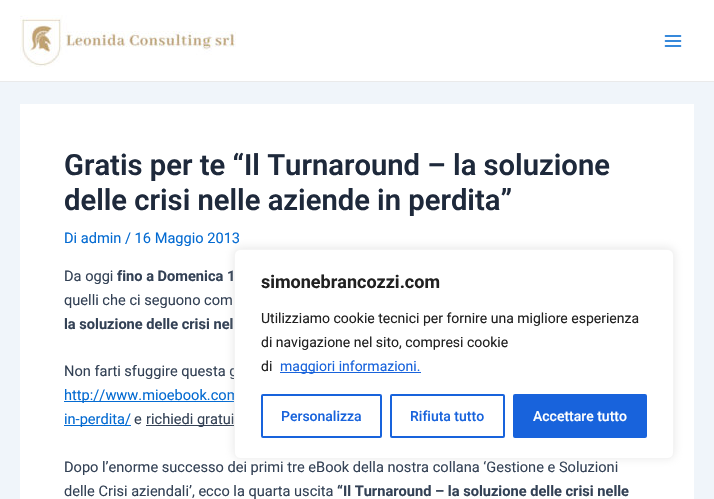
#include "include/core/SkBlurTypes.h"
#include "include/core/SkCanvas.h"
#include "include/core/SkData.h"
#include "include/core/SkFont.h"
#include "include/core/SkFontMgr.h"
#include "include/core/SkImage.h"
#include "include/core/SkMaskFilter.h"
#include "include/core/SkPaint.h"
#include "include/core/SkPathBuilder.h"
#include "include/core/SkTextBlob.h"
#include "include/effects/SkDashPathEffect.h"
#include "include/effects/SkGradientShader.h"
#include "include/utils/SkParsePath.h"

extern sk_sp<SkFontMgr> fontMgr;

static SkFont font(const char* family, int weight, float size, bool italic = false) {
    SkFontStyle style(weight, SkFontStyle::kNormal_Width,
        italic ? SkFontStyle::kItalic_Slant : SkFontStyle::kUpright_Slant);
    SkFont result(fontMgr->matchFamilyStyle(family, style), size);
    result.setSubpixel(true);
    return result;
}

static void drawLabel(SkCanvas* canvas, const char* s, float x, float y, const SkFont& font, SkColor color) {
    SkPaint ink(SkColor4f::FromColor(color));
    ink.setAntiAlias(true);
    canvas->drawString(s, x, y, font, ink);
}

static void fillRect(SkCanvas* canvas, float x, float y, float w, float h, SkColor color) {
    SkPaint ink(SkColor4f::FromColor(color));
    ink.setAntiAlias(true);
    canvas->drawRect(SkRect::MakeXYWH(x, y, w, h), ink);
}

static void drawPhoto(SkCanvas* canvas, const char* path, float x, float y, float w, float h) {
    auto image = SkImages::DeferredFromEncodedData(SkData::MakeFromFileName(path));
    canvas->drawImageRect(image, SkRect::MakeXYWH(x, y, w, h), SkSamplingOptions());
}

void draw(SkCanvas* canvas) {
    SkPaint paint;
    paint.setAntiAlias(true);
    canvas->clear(0xFFF0F5FA);
    fillRect(canvas, 0, 0, 714, 81, 0xFFFFFFFF);
    fillRect(canvas, 0, 81, 714, 1, 0xFFEAEAEA);
    drawPhoto(canvas, "assets/img1.png", 20, 15, 216, 52);
    drawPhoto(canvas, "assets/img2.png", 664, 35, 18, 12);
    fillRect(canvas, 20, 104, 674, 395, 0xFFFFFFFF);
    SkFont font1 = font("Roboto", 600, 29.2f);
    drawLabel(canvas, "Gratis per te “Il Turnaround – la soluzione", 64, 175, font1, 0xFF1E293B);
    drawLabel(canvas, "delle crisi nelle aziende in perdita”", 64, 210, font1, 0xFF1E293B);
    SkFont font2 = font("Roboto", 400, 14.6f);
    drawLabel(canvas, "Di admin / 16 Maggio 2013", 64, 243, font2, 0xFF046BD2);
    drawLabel(canvas, "Da oggi", 64, 281, font2, 0xFF334155);
    SkFont font3 = font("Roboto", 700, 14.6f);
    drawLabel(canvas, "fino a Domenica 1", 117, 281, font3, 0xFF334155);
    drawLabel(canvas, "quelli che ci seguono com", 64, 305, font2, 0xFF334155);
    drawLabel(canvas, "la soluzione delle crisi nel", 64, 329, font3, 0xFF334155);
    drawLabel(canvas, "Non farti sfuggire questa g", 64, 376, font2, 0xFF334155);
    fillRect(canvas, 64, 401, 170, 1, 0xFF046BD2);
    drawLabel(canvas, "http://www.mioebook.com", 64, 400, font2, 0xFF046BD2);
    fillRect(canvas, 64, 425, 67, 1, 0xFF046BD2);
    drawLabel(canvas, "in-perdita/", 64, 424, font2, 0xFF046BD2);
    drawLabel(canvas, "e", 134, 424, font2, 0xFF334155);
    fillRect(canvas, 146, 425, 88, 1, 0xFF334155);
    drawLabel(canvas, "richiedi gratui", 146, 424, font2, 0xFF334155);
    drawLabel(canvas, "Dopo l’enorme successo dei primi tre eBook della nostra collana ‘Gestione e Soluzioni", 64, 472, font2, 0xFF334155);
    drawLabel(canvas, "delle Crisi aziendali’, ecco la quarta uscita", 64, 496, font2, 0xFF334155);
    drawLabel(canvas, "“Il Turnaround – la soluzione delle crisi nelle", 337, 496, font3, 0xFF334155);
    paint.setColor(0x4DACABAB);
    paint.setMaskFilter(SkMaskFilter::MakeBlur(kNormal_SkBlurStyle, 5));
    canvas->drawRoundRect(SkRect::MakeXYWH(234, 248, 440, 210), 6, 6, paint);
    paint.setMaskFilter(nullptr);
    paint.setColor(0xFFFFFFFF);
    canvas->drawRoundRect(SkRect::MakeXYWH(234.5f, 249.5f, 439, 209), 5.5f, 5.5f, paint);
    paint.setStroke(true);
    paint.setStrokeWidth(1);
    paint.setColor(0xFFF4F4F4);
    canvas->drawRoundRect(SkRect::MakeXYWH(234.5f, 249.5f, 439, 209), 5.5f, 5.5f, paint);
    SkFont font4 = font("Roboto", 700, 18);
    drawLabel(canvas, "simonebrancozzi.com", 261, 288, font4, 0xFF212121);
    SkFont font5 = font("Roboto", 400, 14);
    drawLabel(canvas, "Utilizziamo cookie tecnici per fornire una migliore esperienza", 261, 323, font5, 0xFF212121);
    drawLabel(canvas, "di navigazione nel sito, compresi cookie", 261, 347, font5, 0xFF212121);
    drawLabel(canvas, "di", 261, 371, font5, 0xFF212121);
    fillRect(canvas, 280, 372, 141, 1, 0xFF1863DC);
    drawLabel(canvas, "maggiori informazioni.", 280, 371, font5, 0xFF1863DC);
    paint.setStrokeWidth(2);
    paint.setColor(0xFF1863DC);
    canvas->drawRoundRect(SkRect::MakeXYWH(262, 395, 119, 42), 1, 1, paint);
    SkFont font6 = font("Roboto", 500, 14);
    drawLabel(canvas, "Personalizza", 281, 421, font6, 0xFF1863DC);
    canvas->drawRoundRect(SkRect::MakeXYWH(391, 395, 113, 42), 1, 1, paint);
    drawLabel(canvas, "Rifiuta tutto", 410, 421, font6, 0xFF1863DC);
    paint.setStroke(false);
    canvas->drawRoundRect(SkRect::MakeXYWH(514, 395, 132, 42), 1, 1, paint);
    paint.setStroke(true);
    canvas->drawRoundRect(SkRect::MakeXYWH(514, 395, 132, 42), 1, 1, paint);
    drawLabel(canvas, "Accettare tutto", 533, 421, font6, 0xFFFFFFFF);
}
